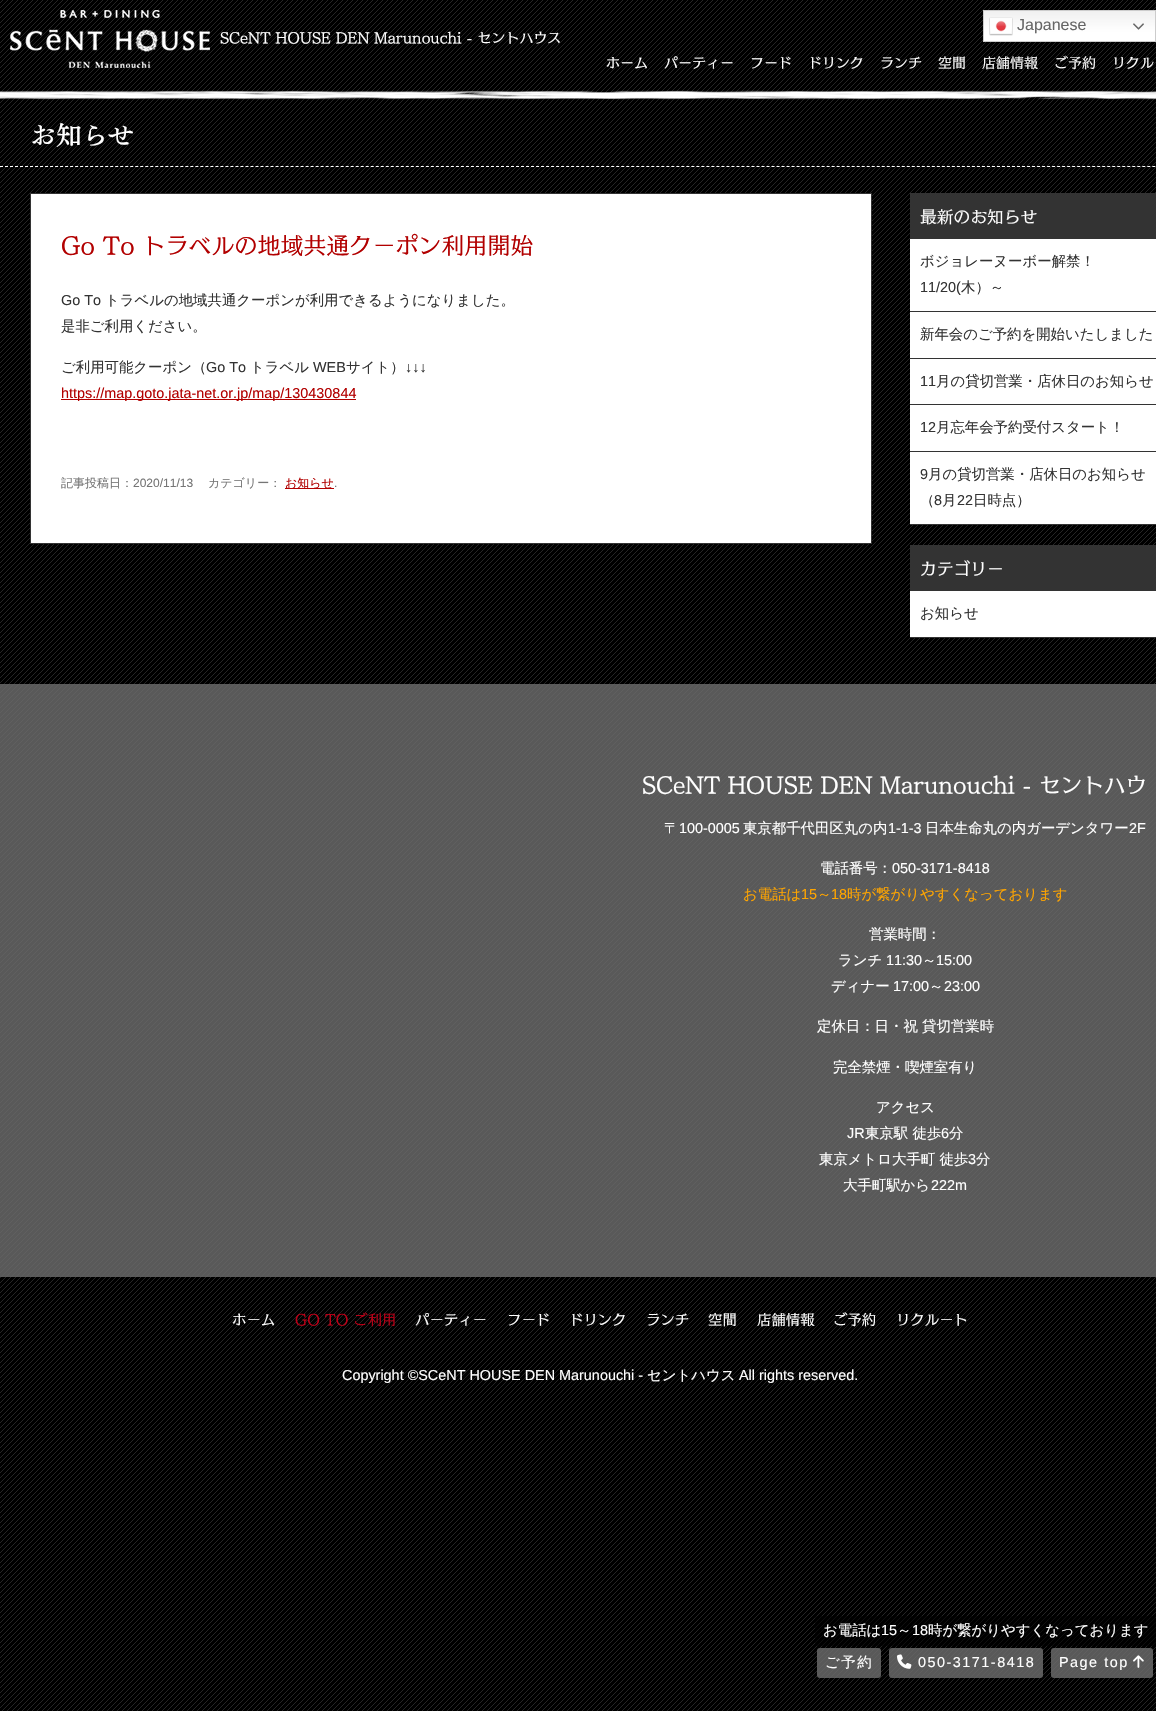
#include "include/core/SkBlurTypes.h"
#include "include/core/SkCanvas.h"
#include "include/core/SkData.h"
#include "include/core/SkFont.h"
#include "include/core/SkFontMgr.h"
#include "include/core/SkImage.h"
#include "include/core/SkMaskFilter.h"
#include "include/core/SkPaint.h"
#include "include/core/SkPathBuilder.h"
#include "include/core/SkTextBlob.h"
#include "include/effects/SkDashPathEffect.h"
#include "include/effects/SkGradientShader.h"
#include "include/utils/SkParsePath.h"

extern sk_sp<SkFontMgr> fontMgr;

static SkFont font(const char* family, int weight, float size, bool italic = false) {
    SkFontStyle style(weight, SkFontStyle::kNormal_Width,
        italic ? SkFontStyle::kItalic_Slant : SkFontStyle::kUpright_Slant);
    SkFont result(fontMgr->matchFamilyStyle(family, style), size);
    result.setSubpixel(true);
    return result;
}

static void drawLabel(SkCanvas* canvas, const char* s, float x, float y, const SkFont& font, SkColor color) {
    SkPaint ink(SkColor4f::FromColor(color));
    ink.setAntiAlias(true);
    canvas->drawString(s, x, y, font, ink);
}

static void drawTracked(SkCanvas* canvas, const char* s, float x, float y, const SkFont& font, const SkPaint& ink, float letter, float word) {
    std::vector<SkGlyphID> glyphs(font.countText(s, strlen(s), SkTextEncoding::kUTF8));
    std::vector<float> xs(glyphs.size());
    font.textToGlyphs(s, strlen(s), SkTextEncoding::kUTF8, glyphs);
    font.getXPos(glyphs, xs, x);
    float extra = 0;
    for (size_t i = 0; i < glyphs.size(); i++) {
        xs[i] += extra;
        extra += letter + word * (glyphs[i] == font.unicharToGlyph(' '));
    }
    canvas->drawTextBlob(SkTextBlob::MakeFromPosHGlyphs(glyphs, xs, y, font), 0, 0, ink);
}

static void fillRect(SkCanvas* canvas, float x, float y, float w, float h, SkColor color) {
    SkPaint ink(SkColor4f::FromColor(color));
    ink.setAntiAlias(true);
    canvas->drawRect(SkRect::MakeXYWH(x, y, w, h), ink);
}

static void fillRRect(SkCanvas* canvas, float x, float y, float w, float h, float radius, SkColor color) {
    SkPaint ink(SkColor4f::FromColor(color));
    ink.setAntiAlias(true);
    canvas->drawRoundRect(SkRect::MakeXYWH(x, y, w, h), radius, radius, ink);
}

static void drawPhoto(SkCanvas* canvas, const char* path, float x, float y, float w, float h) {
    auto image = SkImages::DeferredFromEncodedData(SkData::MakeFromFileName(path));
    canvas->drawImageRect(image, SkRect::MakeXYWH(x, y, w, h), SkSamplingOptions());
}

static SkPath parsePath(const char* data, bool evenOdd = false) {
    SkPath result = *SkParsePath::FromSVGString(data);
    if (evenOdd) result.setFillType(SkPathFillType::kEvenOdd);
    return result;
}

void draw(SkCanvas* canvas) {
    SkPaint paint;
    paint.setAntiAlias(true);
    canvas->clear(0xFF000000);
    drawPhoto(canvas, "assets/img1.png", 0, 0, 1156, 1711);
    drawPhoto(canvas, "assets/img2.png", 10, 10, 200, 58);
    {
        const SkColor colors[] = {0xFFEFEFEF, 0xFFFFFFFF};
        const float stops[] = {0, 0.7f};
        const SkPoint ends[] = {{1070, 10}, {1070, 42}};
        paint.setShader(SkGradientShader::MakeLinear(ends, colors, stops, 2, SkTileMode::kClamp));
        paint.setAlpha(255);
    }
    canvas->drawRect(SkRect::MakeXYWH(984, 11, 171, 30), paint);
    paint.setStroke(true);
    paint.setStrokeWidth(1);
    paint.setShader(nullptr);
    paint.setColor(0xFFCCCCCC);
    canvas->drawRect(SkRect::MakeXYWH(983.5f, 10.5f, 172, 31), paint);
    drawPhoto(canvas, "assets/img3.png", 989, 17, 24, 19);
    SkFont font1 = font("Liberation Sans", 400, 16);
    drawLabel(canvas, "Japanese", 1017, 30, font1, 0xFF666666);
    drawPhoto(canvas, "assets/img4.png", 1133, 23, 11, 7);
    SkFont font2 = font("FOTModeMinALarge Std", 400, 14);
    drawLabel(canvas, "SCeNT HOUSE DEN Marunouchi - セントハウス", 220, 43, font2, 0xFFFFFFFF);
    drawLabel(canvas, "ホーム", 606, 68, font2, 0xFFFFFFFF);
    drawLabel(canvas, "パーティー", 664, 68, font2, 0xFFFFFFFF);
    drawLabel(canvas, "フード", 750, 68, font2, 0xFFFFFFFF);
    drawLabel(canvas, "ドリンク", 808, 68, font2, 0xFFFFFFFF);
    drawLabel(canvas, "ランチ", 880, 68, font2, 0xFFFFFFFF);
    drawLabel(canvas, "空間", 938, 68, font2, 0xFFFFFFFF);
    drawLabel(canvas, "店舗情報", 982, 68, font2, 0xFFFFFFFF);
    drawLabel(canvas, "ご予約", 1054, 68, font2, 0xFFFFFFFF);
    drawLabel(canvas, "リクル", 1112, 68, font2, 0xFFFFFFFF);
    drawPhoto(canvas, "assets/img5.png", 0, 90, 1156, 10);
    paint.setColor(0xFFFFFFFF);
    paint.setPathEffect(SkDashPathEffect::Make({{3, 2.01f}}, 0));
    canvas->drawPath(parsePath("M0 166.5H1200"), paint);
    paint.setPathEffect(nullptr);
    SkFont font3 = font("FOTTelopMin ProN", 600, 26);
    drawLabel(canvas, "お知らせ", 30, 145, font3, 0xFFFFFFFF);
    paint.setStroke(false);
    canvas->drawRect(SkRect::MakeXYWH(30.5f, 193.5f, 841, 350), paint);
    paint.setStroke(true);
    paint.setColor(0xFF333333);
    canvas->drawRect(SkRect::MakeXYWH(30.5f, 193.5f, 841, 350), paint);
    SkFont font4 = font("FOTModeMinALarge Std", 400, 23);
    drawLabel(canvas, "Go To トラベルの地域共通クーポン利用開始", 61, 254, font4, 0xFFB20000);
    SkFont font5 = font("Liberation Sans", 400, 14.4f);
    drawLabel(canvas, "Go To", 61, 305, font5, 0xFF333333);
    SkFont font6 = font("WenQuanYi Zen Hei", 500, 14.4f);
    drawLabel(canvas, "トラベルの地域共通クーポンが利用できるようになりました。", 105, 305, font6, 0xFF333333);
    drawLabel(canvas, "是非ご利用ください。", 61, 331, font6, 0xFF333333);
    drawLabel(canvas, "ご利用可能クーポン（", 61, 372, font6, 0xFF333333);
    drawLabel(canvas, "Go To", 206, 372, font5, 0xFF333333);
    drawLabel(canvas, "トラベル", 250, 372, font6, 0xFF333333);
    drawLabel(canvas, "WEB", 313, 372, font5, 0xFF333333);
    drawLabel(canvas, "サイト）", 346, 372, font6, 0xFF333333);
    drawLabel(canvas, "↓↓↓", 405, 372, font5, 0xFF333333);
    fillRect(canvas, 61, 399, 295, 1, 0xFFB20000);
    drawLabel(canvas, "https://map.goto.jata-net.or.jp/map/130430844", 61, 398, font5, 0xFFB20000);
    SkFont font7 = font("WenQuanYi Zen Hei", 500, 12);
    drawLabel(canvas, "記事投稿日：", 61, 487, font7, 0xFF757575);
    SkFont font8 = font("Liberation Sans", 400, 12);
    drawLabel(canvas, "2020/11/13", 133, 487, font8, 0xFF757575);
    drawLabel(canvas, "カテゴリー：", 208, 487, font7, 0xFF757575);
    fillRect(canvas, 285, 488, 49, 1, 0xFFB20000);
    drawLabel(canvas, "お知らせ", 285, 487, font7, 0xFFB20000);
    drawLabel(canvas, ".", 334, 487, font8, 0xFF757575);
    fillRect(canvas, 910, 193, 246, 46, 0xFF333333);
    SkFont font9 = font("FOTModeMinALarge Std", 400, 16.75f);
    drawLabel(canvas, "最新のお知らせ", 920, 223, font9, 0xFFFFFFFF);
    fillRect(canvas, 910, 239, 246, 72, 0xFFFFFFFF);
    fillRect(canvas, 910, 311, 246, 1, 0xFF333333);
    drawLabel(canvas, "ボジョレーヌーボー解禁！", 920, 266, font6, 0xFF333333);
    drawLabel(canvas, "11/20(", 920, 292, font5, 0xFF333333);
    drawLabel(canvas, "木）～", 961, 292, font6, 0xFF333333);
    fillRect(canvas, 910, 312, 246, 46, 0xFFFFFFFF);
    fillRect(canvas, 910, 358, 246, 1, 0xFF333333);
    drawLabel(canvas, "新年会のご予約を開始いたしました", 920, 339, font6, 0xFF333333);
    fillRect(canvas, 910, 359, 246, 45, 0xFFFFFFFF);
    fillRect(canvas, 910, 404, 246, 1, 0xFF333333);
    drawLabel(canvas, "11", 920, 386, font5, 0xFF333333);
    drawLabel(canvas, "月の貸切営業・店休日のお知らせ", 936, 386, font6, 0xFF333333);
    fillRect(canvas, 910, 405, 246, 46, 0xFFFFFFFF);
    fillRect(canvas, 910, 451, 246, 1, 0xFF333333);
    drawLabel(canvas, "12", 920, 432, font5, 0xFF333333);
    drawLabel(canvas, "月忘年会予約受付スタート！", 936, 432, font6, 0xFF333333);
    fillRect(canvas, 910, 452, 246, 72, 0xFFFFFFFF);
    fillRect(canvas, 910, 524, 246, 1, 0xFF333333);
    drawLabel(canvas, "9", 920, 479, font5, 0xFF333333);
    drawLabel(canvas, "月の貸切営業・店休日のお知らせ", 928, 479, font6, 0xFF333333);
    drawLabel(canvas, "（", 920, 505, font6, 0xFF333333);
    drawLabel(canvas, "8", 934, 505, font5, 0xFF333333);
    drawLabel(canvas, "月", 942, 505, font6, 0xFF333333);
    drawLabel(canvas, "22", 957, 505, font5, 0xFF333333);
    drawLabel(canvas, "日時点）", 973, 505, font6, 0xFF333333);
    fillRect(canvas, 910, 545, 246, 46, 0xFF333333);
    drawLabel(canvas, "カテゴリー", 920, 575, font9, 0xFFFFFFFF);
    fillRect(canvas, 910, 591, 246, 46, 0xFFFFFFFF);
    fillRect(canvas, 910, 637, 246, 1, 0xFF333333);
    drawLabel(canvas, "お知らせ", 920, 618, font6, 0xFF333333);
    fillRect(canvas, 0, 684, 1156, 593, 0xD16D6D6D);
    SkFont font10 = font("FOTModeMinALarge Std", 400, 21.6f);
    drawLabel(canvas, "SCeNT HOUSE DEN Marunouchi - セントハウ", 642, 793, font10, 0xFFFFFFFF);
    drawLabel(canvas, "〒", 664, 833, font6, 0xFFFFFFFF);
    drawLabel(canvas, "100-0005", 679, 833, font5, 0xFFFFFFFF);
    drawLabel(canvas, "東京都千代田区丸の内", 743, 833, font6, 0xFFFFFFFF);
    drawLabel(canvas, "1-1-3", 888, 833, font5, 0xFFFFFFFF);
    drawLabel(canvas, "日本生命丸の内ガーデンタワー", 925, 833, font6, 0xFFFFFFFF);
    drawLabel(canvas, "2F", 1129, 833, font5, 0xFFFFFFFF);
    drawLabel(canvas, "電話番号：", 820, 873, font6, 0xFFFFFFFF);
    drawLabel(canvas, "050-3171-8418", 892, 873, font5, 0xFFFFFFFF);
    drawLabel(canvas, "お電話は", 743, 899, font6, 0xFFFFA500);
    drawLabel(canvas, "15", 801, 899, font5, 0xFFFFA500);
    drawLabel(canvas, "～", 817, 899, font6, 0xFFFFA500);
    drawLabel(canvas, "18", 831, 899, font5, 0xFFFFA500);
    drawLabel(canvas, "時が繋がりやすくなっております", 847, 899, font6, 0xFFFFA500);
    drawLabel(canvas, "営業時間：", 869, 939, font6, 0xFFFFFFFF);
    drawLabel(canvas, "ランチ", 838, 965, font6, 0xFFFFFFFF);
    drawLabel(canvas, "11:30", 886, 965, font5, 0xFFFFFFFF);
    drawLabel(canvas, "～", 922, 965, font6, 0xFFFFFFFF);
    drawLabel(canvas, "15:00", 936, 965, font5, 0xFFFFFFFF);
    drawLabel(canvas, "ディナー", 831, 991, font6, 0xFFFFFFFF);
    drawLabel(canvas, "17:00", 893, 991, font5, 0xFFFFFFFF);
    drawLabel(canvas, "～", 929, 991, font6, 0xFFFFFFFF);
    drawLabel(canvas, "23:00", 944, 991, font5, 0xFFFFFFFF);
    drawLabel(canvas, "定休日：日・祝 貸切営業時", 817, 1031, font6, 0xFFFFFFFF);
    drawLabel(canvas, "完全禁煙・喫煙室有り", 833, 1072, font6, 0xFFFFFFFF);
    drawLabel(canvas, "アクセス", 876, 1112, font6, 0xFFFFFFFF);
    drawLabel(canvas, "JR", 847, 1138, font5, 0xFFFFFFFF);
    drawLabel(canvas, "東京駅 徒歩", 865, 1138, font6, 0xFFFFFFFF);
    drawLabel(canvas, "6", 941, 1138, font5, 0xFFFFFFFF);
    drawLabel(canvas, "分", 949, 1138, font6, 0xFFFFFFFF);
    drawLabel(canvas, "東京メトロ大手町 徒歩", 819, 1164, font6, 0xFFFFFFFF);
    drawLabel(canvas, "3", 968, 1164, font5, 0xFFFFFFFF);
    drawLabel(canvas, "分", 976, 1164, font6, 0xFFFFFFFF);
    drawLabel(canvas, "大手町駅から", 843, 1190, font6, 0xFFFFFFFF);
    drawLabel(canvas, "222m", 931, 1190, font5, 0xFFFFFFFF);
    SkFont font11 = font("FOTModeMinALarge Std", 400, 14.4f);
    drawLabel(canvas, "ホーム", 232, 1325, font11, 0xFFFFFFFF);
    drawLabel(canvas, "GO TO ご利用", 295, 1325, font11, 0xFFBE0017);
    drawLabel(canvas, "パーティー", 415, 1325, font11, 0xFFFFFFFF);
    drawLabel(canvas, "フード", 507, 1325, font11, 0xFFFFFFFF);
    drawLabel(canvas, "ドリンク", 569, 1325, font11, 0xFFFFFFFF);
    drawLabel(canvas, "ランチ", 646, 1325, font11, 0xFFFFFFFF);
    drawLabel(canvas, "空間", 708, 1325, font11, 0xFFFFFFFF);
    drawLabel(canvas, "店舗情報", 757, 1325, font11, 0xFFFFFFFF);
    drawLabel(canvas, "ご予約", 833, 1325, font11, 0xFFFFFFFF);
    drawLabel(canvas, "リクルート", 896, 1325, font11, 0xFFFFFFFF);
    drawLabel(canvas, "Copyright ©SCeNT HOUSE DEN Marunouchi -", 342, 1380, font5, 0xFFFFFFFF);
    drawLabel(canvas, "セントハウス", 647, 1380, font6, 0xFFFFFFFF);
    drawLabel(canvas, "All rights reserved.", 739, 1380, font5, 0xFFFFFFFF);
    fillRRect(canvas, 815, 1616, 341, 30, 3, 0x99000000);
    drawLabel(canvas, "お電話は", 823, 1635, font6, 0xFFFFFFFF);
    drawLabel(canvas, "15", 881, 1635, font5, 0xFFFFFFFF);
    drawLabel(canvas, "～", 897, 1635, font6, 0xFFFFFFFF);
    drawLabel(canvas, "18", 912, 1635, font5, 0xFFFFFFFF);
    drawLabel(canvas, "時が繋がりやすくなっております", 928, 1635, font6, 0xFFFFFFFF);
    fillRRect(canvas, 817, 1648, 64, 30, 3, 0xD16D6D6D);
    paint.setStroke(false);
    paint.setColor(0xFFFFFFFF);
    drawTracked(canvas, "ご予約", 825, 1667, font6, paint, 1.5f, 0);
    fillRRect(canvas, 889, 1648, 154, 30, 3, 0xD16D6D6D);
    drawPhoto(canvas, "assets/img6.png", 897, 1654, 15, 15);
    drawTracked(canvas, "050-3171-8418", 918, 1667, font5, paint, 1.5f, 0);
    fillRRect(canvas, 1051, 1648, 102, 30, 3, 0xD16D6D6D);
    drawTracked(canvas, "Page top", 1059, 1667, font5, paint, 1.5f, 0);
    drawPhoto(canvas, "assets/img7.png", 1133, 1655, 11, 13);
}
